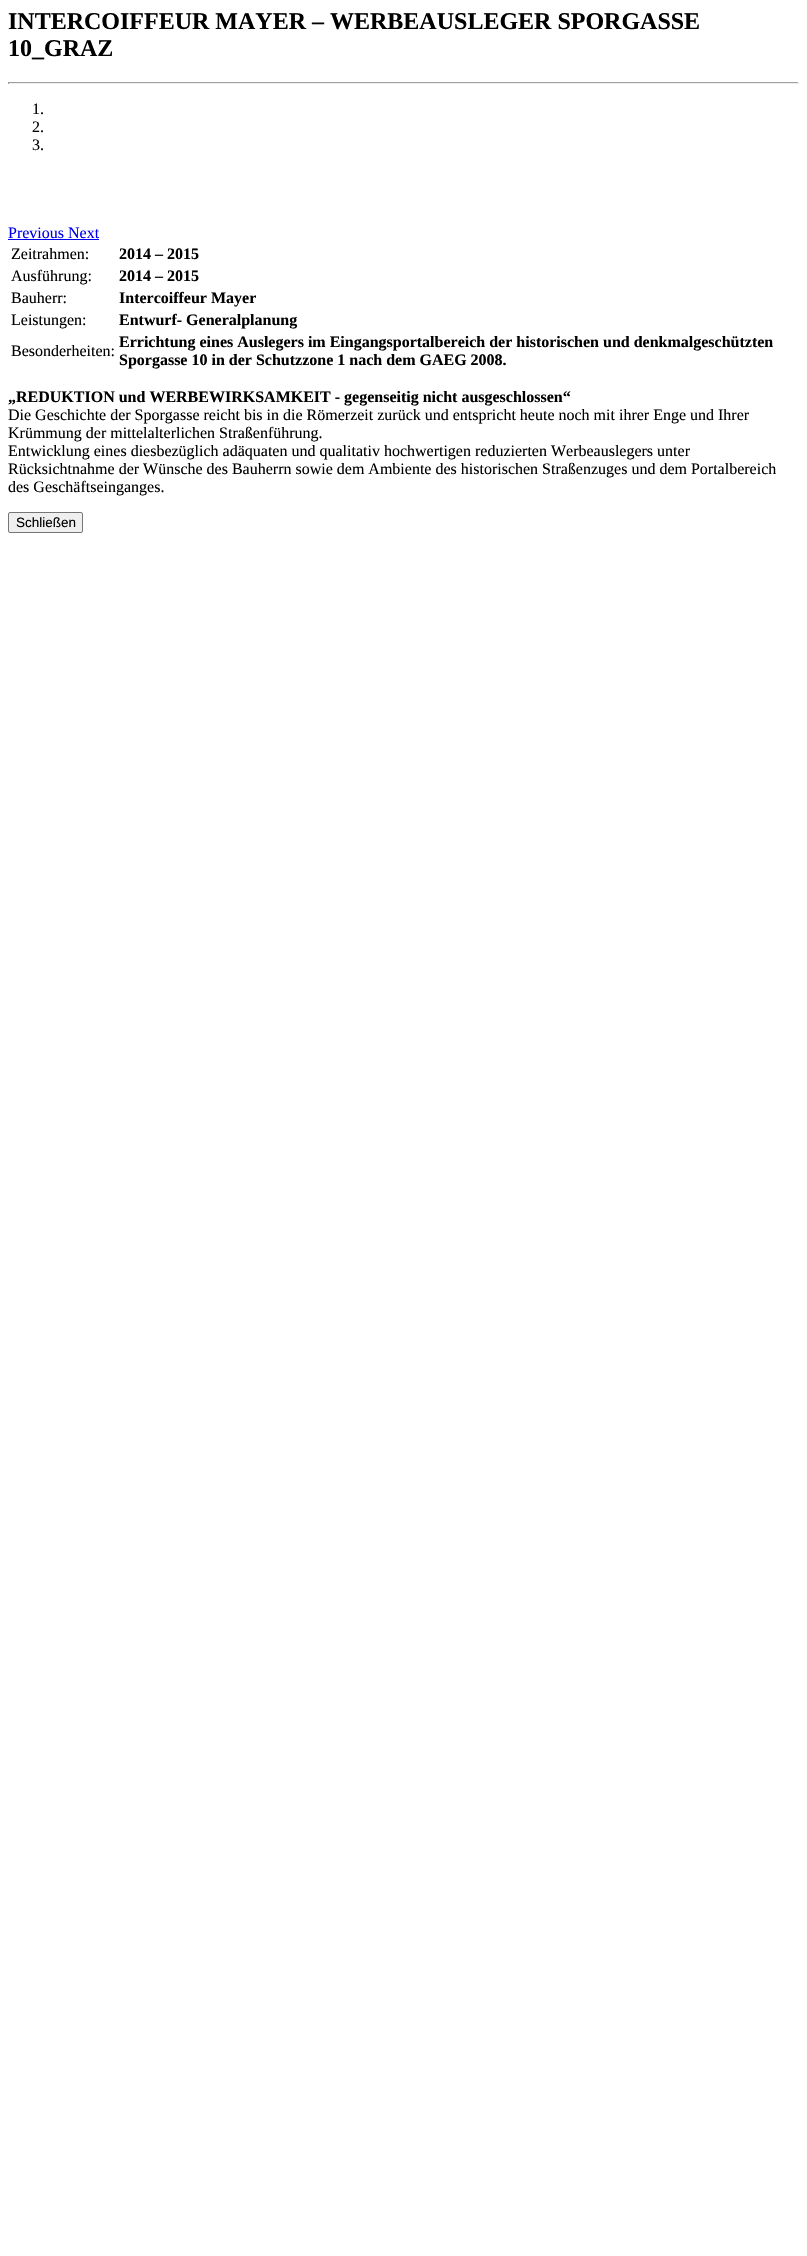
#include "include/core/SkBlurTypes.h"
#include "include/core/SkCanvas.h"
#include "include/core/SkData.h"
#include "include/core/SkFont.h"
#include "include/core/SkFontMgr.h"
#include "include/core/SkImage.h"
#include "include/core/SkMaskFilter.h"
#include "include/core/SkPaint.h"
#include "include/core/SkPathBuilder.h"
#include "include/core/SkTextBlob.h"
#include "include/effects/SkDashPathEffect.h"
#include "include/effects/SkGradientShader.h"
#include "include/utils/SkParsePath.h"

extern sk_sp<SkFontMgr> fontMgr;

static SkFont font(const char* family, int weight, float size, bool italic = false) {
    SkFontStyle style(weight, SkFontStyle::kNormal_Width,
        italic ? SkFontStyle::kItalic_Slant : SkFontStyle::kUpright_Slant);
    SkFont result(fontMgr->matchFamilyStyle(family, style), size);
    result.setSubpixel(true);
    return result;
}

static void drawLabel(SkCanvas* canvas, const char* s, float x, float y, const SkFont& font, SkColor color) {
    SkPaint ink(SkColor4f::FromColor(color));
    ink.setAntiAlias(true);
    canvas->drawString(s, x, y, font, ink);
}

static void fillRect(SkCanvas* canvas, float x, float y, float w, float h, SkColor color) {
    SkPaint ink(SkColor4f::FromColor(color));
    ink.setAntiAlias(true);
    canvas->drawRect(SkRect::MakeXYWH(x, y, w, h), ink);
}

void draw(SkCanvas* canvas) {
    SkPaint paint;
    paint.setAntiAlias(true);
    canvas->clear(0xFFFFFFFF);
    SkFont font1 = font("Liberation Serif", 700, 24);
    drawLabel(canvas, "INTERCOIFFEUR MAYER – WERBEAUSLEGER SPORGASSE", 8, 29, font1, 0xFF000000);
    drawLabel(canvas, "10_GRAZ", 8, 56, font1, 0xFF000000);
    fillRect(canvas, 8, 82, 791, 1, 0xFF9F9F9F);
    fillRect(canvas, 798, 82, 1, 2, 0xFFEEEEEE);
    fillRect(canvas, 8, 83, 791, 1, 0xFFEEEEEE);
    fillRect(canvas, 8, 82, 1, 2, 0xFF9F9F9F);
    SkFont font2 = font("Liberation Serif", 400, 16);
    drawLabel(canvas, "1.", 32, 114, font2, 0xFF000000);
    drawLabel(canvas, "2.", 32, 132, font2, 0xFF000000);
    drawLabel(canvas, "3.", 32, 150, font2, 0xFF000000);
    drawLabel(canvas, "Previous Next", 8, 238, font2, 0xFF0000EE);
    fillRect(canvas, 8, 239, 91, 1, 0xFF0000EE);
    drawLabel(canvas, "Zeitrahmen:", 11, 259, font2, 0xFF000000);
    SkFont font3 = font("Liberation Serif", 700, 16);
    drawLabel(canvas, "2014 – 2015", 119, 259, font3, 0xFF000000);
    drawLabel(canvas, "Ausführung:", 11, 281, font2, 0xFF000000);
    drawLabel(canvas, "2014 – 2015", 119, 281, font3, 0xFF000000);
    drawLabel(canvas, "Bauherr:", 11, 303, font2, 0xFF000000);
    drawLabel(canvas, "Intercoiffeur Mayer", 119, 303, font3, 0xFF000000);
    drawLabel(canvas, "Leistungen:", 11, 325, font2, 0xFF000000);
    drawLabel(canvas, "Entwurf- Generalplanung", 119, 325, font3, 0xFF000000);
    drawLabel(canvas, "Besonderheiten:", 11, 356, font2, 0xFF000000);
    drawLabel(canvas, "Errichtung eines Auslegers im Eingangsportalbereich der historischen und denkmalgeschützten", 119, 347, font3, 0xFF000000);
    drawLabel(canvas, "Sporgasse 10 in der Schutzzone 1 nach dem GAEG 2008.", 119, 365, font3, 0xFF000000);
    drawLabel(canvas, "„REDUKTION und WERBEWIRKSAMKEIT - gegenseitig nicht ausgeschlossen“", 8, 402, font3, 0xFF000000);
    drawLabel(canvas, "Die Geschichte der Sporgasse reicht bis in die Römerzeit zurück und entspricht heute noch mit ihrer Enge und Ihrer", 8, 420, font2, 0xFF000000);
    drawLabel(canvas, "Krümmung der mittelalterlichen Straßenführung.", 8, 438, font2, 0xFF000000);
    drawLabel(canvas, "Entwicklung eines diesbezüglich adäquaten und qualitativ hochwertigen reduzierten Werbeauslegers unter", 8, 456, font2, 0xFF000000);
    drawLabel(canvas, "Rücksichtnahme der Wünsche des Bauherrn sowie dem Ambiente des historischen Straßenzuges und dem Portalbereich", 8, 474, font2, 0xFF000000);
    drawLabel(canvas, "des Geschäftseinganges.", 8, 492, font2, 0xFF000000);
    paint.setColor(0xFFEFEFEF);
    canvas->drawRoundRect(SkRect::MakeXYWH(8.5f, 512.5f, 74, 20), 1.5f, 1.5f, paint);
    paint.setStroke(true);
    paint.setStrokeWidth(1);
    paint.setColor(0xFF767676);
    canvas->drawRoundRect(SkRect::MakeXYWH(8.5f, 512.5f, 74, 20), 1.5f, 1.5f, paint);
    SkFont font4 = font("Liberation Sans", 400, 13.5f);
    drawLabel(canvas, "Schließen", 16, 527, font4, 0xFF000000);
}
